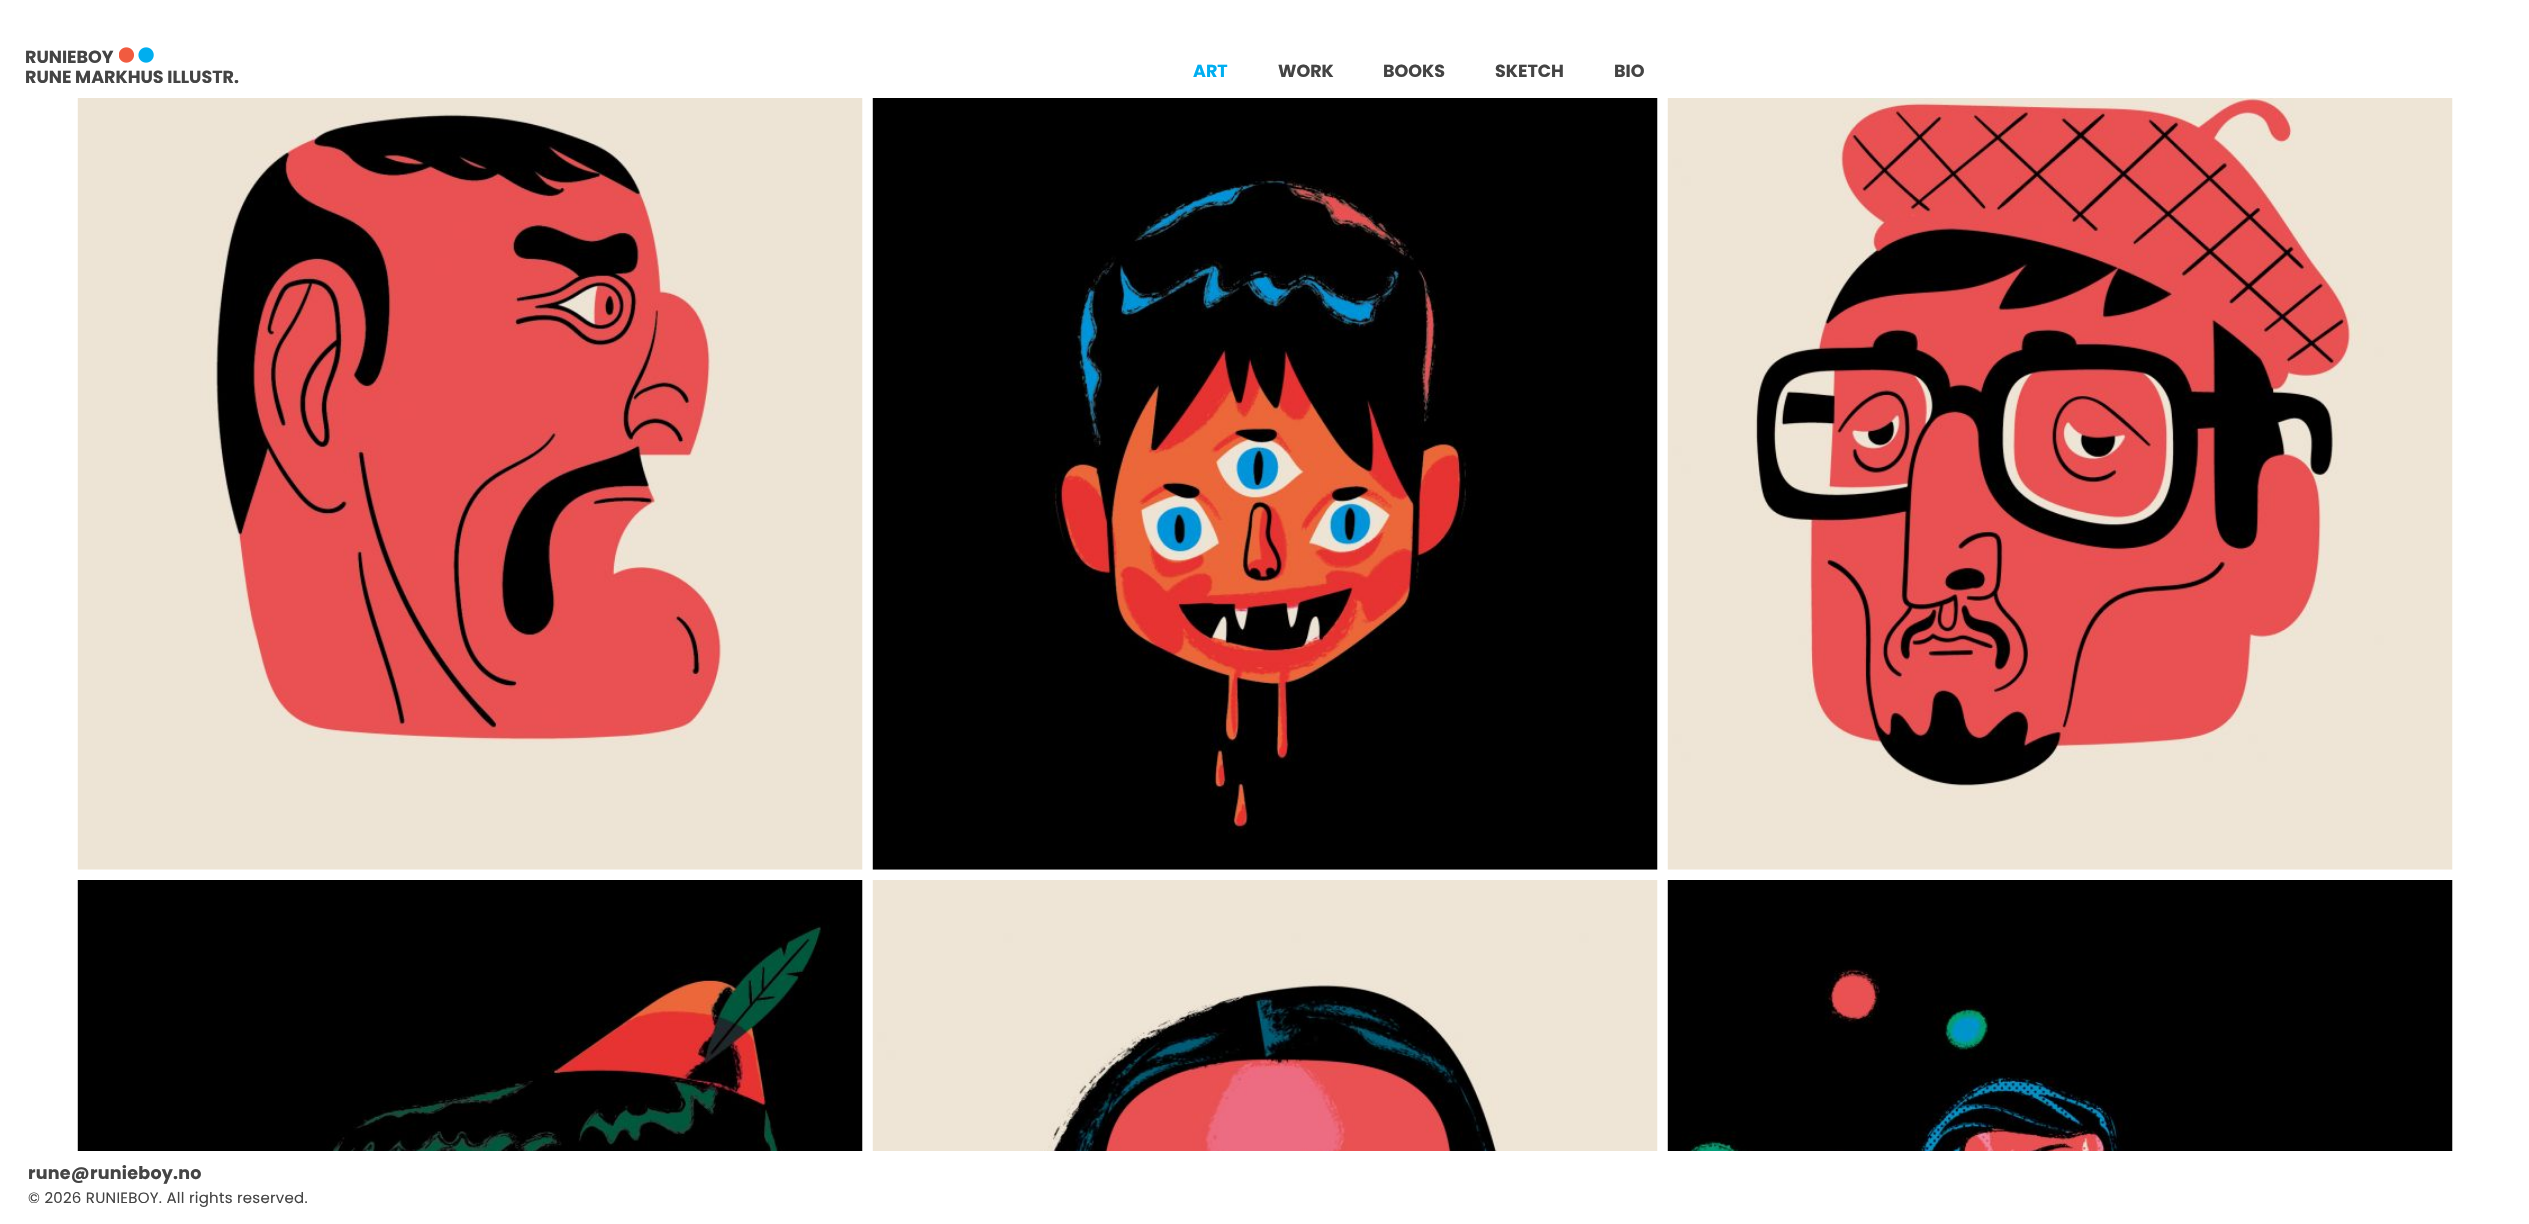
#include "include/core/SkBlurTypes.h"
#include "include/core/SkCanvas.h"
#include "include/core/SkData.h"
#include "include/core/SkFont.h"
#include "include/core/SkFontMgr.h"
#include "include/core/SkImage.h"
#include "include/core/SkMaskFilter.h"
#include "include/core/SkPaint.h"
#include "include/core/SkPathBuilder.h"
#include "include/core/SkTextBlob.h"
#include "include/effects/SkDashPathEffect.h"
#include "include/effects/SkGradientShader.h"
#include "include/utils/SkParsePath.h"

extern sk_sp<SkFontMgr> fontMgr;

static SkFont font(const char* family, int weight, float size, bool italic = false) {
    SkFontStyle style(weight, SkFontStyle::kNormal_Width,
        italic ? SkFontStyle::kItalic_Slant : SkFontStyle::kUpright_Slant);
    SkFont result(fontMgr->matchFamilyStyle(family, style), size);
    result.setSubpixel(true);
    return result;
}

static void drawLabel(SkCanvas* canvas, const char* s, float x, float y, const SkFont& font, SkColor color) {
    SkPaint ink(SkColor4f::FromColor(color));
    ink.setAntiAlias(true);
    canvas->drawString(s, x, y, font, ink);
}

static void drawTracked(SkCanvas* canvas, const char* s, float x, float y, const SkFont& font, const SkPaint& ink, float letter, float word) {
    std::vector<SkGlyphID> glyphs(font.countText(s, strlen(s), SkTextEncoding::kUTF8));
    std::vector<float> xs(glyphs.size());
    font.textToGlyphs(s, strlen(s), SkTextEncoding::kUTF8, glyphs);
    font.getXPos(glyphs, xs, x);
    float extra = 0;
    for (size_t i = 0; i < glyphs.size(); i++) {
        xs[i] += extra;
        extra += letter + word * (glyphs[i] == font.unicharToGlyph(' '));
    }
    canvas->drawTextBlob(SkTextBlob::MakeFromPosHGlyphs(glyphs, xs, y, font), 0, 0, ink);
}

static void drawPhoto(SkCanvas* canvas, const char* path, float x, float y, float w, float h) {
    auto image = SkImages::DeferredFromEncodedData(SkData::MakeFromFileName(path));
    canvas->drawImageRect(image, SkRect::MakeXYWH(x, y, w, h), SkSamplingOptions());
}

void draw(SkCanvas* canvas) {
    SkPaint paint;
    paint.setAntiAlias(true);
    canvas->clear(0xFFFFFFFF);
    drawPhoto(canvas, "assets/img1.png", 119, 47, 35, 16);
    SkFont font1 = font("Poppins", 700, 17.5f);
    drawLabel(canvas, "RUNIEBOY", 25, 63, font1, 0xFF444444);
    drawLabel(canvas, "RUNE MARKHUS ILLUSTR.", 25, 83, font1, 0xFF444444);
    drawLabel(canvas, "ART", 1193, 77, font1, 0xFF00AEF0);
    drawLabel(canvas, "WORK", 1278, 77, font1, 0xFF444444);
    drawLabel(canvas, "BOOKS", 1383, 77, font1, 0xFF444444);
    drawLabel(canvas, "SKETCH", 1495, 77, font1, 0xFF444444);
    drawLabel(canvas, "BIO", 1614, 77, font1, 0xFF444444);
    drawPhoto(canvas, "assets/img2.png", 77, 98, 786, 772);
    drawPhoto(canvas, "assets/img3.png", 872, 98, 786, 772);
    drawPhoto(canvas, "assets/img4.png", 1667, 98, 786, 772);
    drawPhoto(canvas, "assets/img5.png", 77, 880, 786, 271);
    drawPhoto(canvas, "assets/img6.png", 872, 880, 786, 271);
    drawPhoto(canvas, "assets/img7.png", 1667, 880, 786, 271);
    paint.setColor(0xFF444444);
    drawTracked(canvas, "rune@runieboy.no", 28, 1179, font1, paint, 0.25f, 0);
    SkFont font2 = font("Poppins", 400, 15);
    drawTracked(canvas, "© 2026 RUNIEBOY. All rights reserved.", 28, 1203, font2, paint, 0.25f, 0);
}
